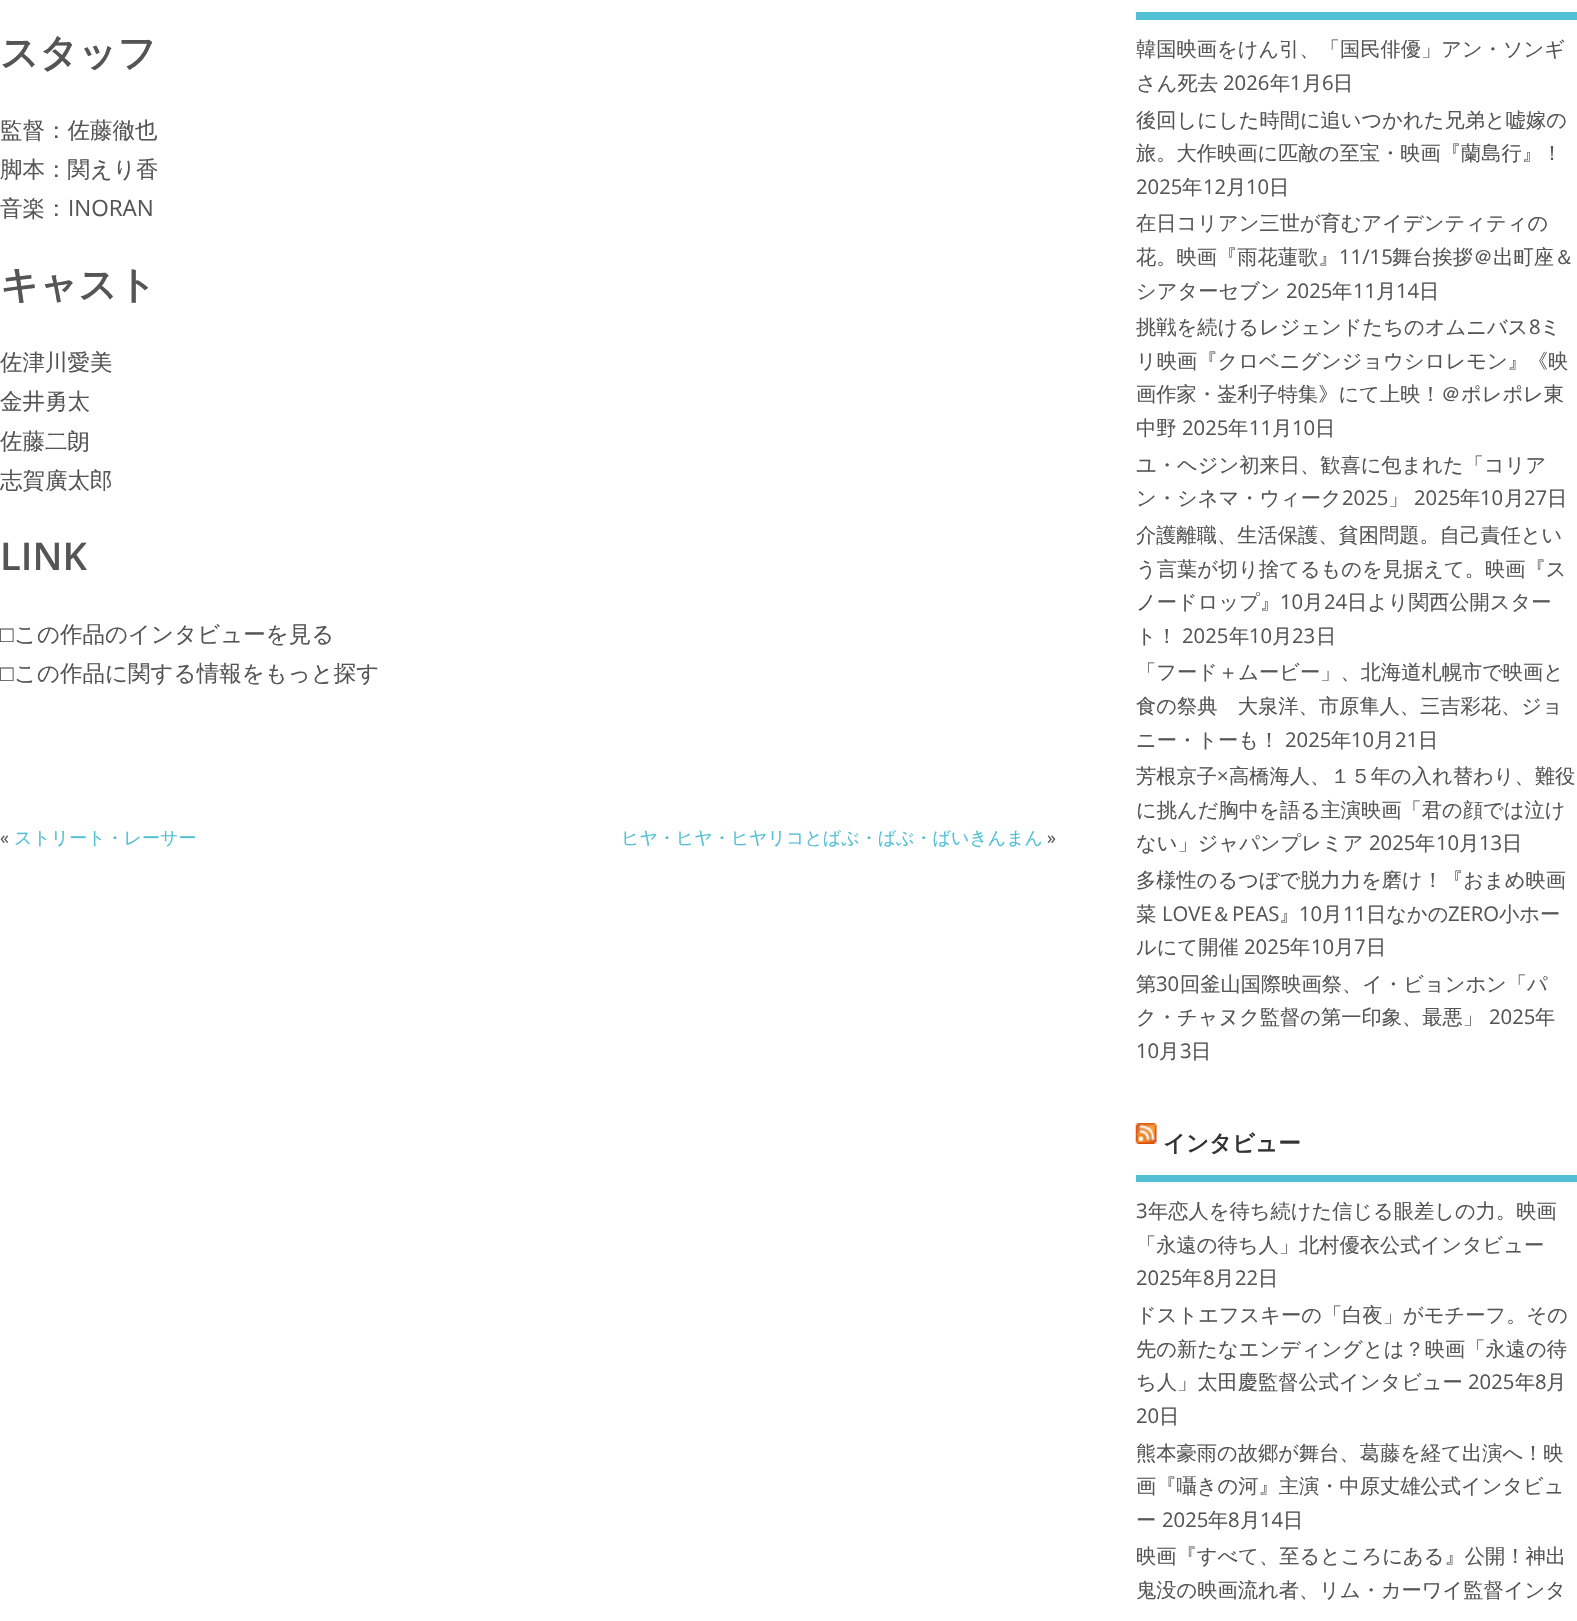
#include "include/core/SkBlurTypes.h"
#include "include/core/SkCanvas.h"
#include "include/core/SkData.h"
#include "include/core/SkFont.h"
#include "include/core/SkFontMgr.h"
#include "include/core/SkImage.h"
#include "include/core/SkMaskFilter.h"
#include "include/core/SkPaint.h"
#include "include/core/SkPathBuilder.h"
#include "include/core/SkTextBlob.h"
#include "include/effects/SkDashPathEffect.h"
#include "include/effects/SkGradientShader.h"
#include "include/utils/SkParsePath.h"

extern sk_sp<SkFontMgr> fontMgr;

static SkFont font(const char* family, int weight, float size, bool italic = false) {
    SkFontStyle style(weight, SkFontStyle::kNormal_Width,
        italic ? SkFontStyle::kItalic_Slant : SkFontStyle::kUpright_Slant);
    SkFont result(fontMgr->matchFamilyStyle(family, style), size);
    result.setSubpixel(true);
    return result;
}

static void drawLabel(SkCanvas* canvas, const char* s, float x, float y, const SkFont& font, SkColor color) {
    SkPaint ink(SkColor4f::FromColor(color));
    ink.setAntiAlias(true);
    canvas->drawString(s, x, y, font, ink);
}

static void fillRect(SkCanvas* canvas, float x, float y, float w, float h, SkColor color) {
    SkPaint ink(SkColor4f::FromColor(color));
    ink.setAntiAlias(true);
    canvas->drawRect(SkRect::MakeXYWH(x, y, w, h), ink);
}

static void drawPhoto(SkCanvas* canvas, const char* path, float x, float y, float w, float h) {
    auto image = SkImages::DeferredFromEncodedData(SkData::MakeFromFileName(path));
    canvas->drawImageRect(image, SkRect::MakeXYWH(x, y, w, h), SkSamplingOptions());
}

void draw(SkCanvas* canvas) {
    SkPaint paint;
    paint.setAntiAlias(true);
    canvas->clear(0xFFFFFFFF);
    SkFont font1 = font("WenQuanYi Zen Hei", 700, 38.25f);
    drawLabel(canvas, "スタッフ", 0, 66, font1, 0xFF555555);
    SkFont font2 = font("WenQuanYi Zen Hei", 500, 22.5f);
    drawLabel(canvas, "監督：佐藤徹也", 0, 138, font2, 0xFF555555);
    drawLabel(canvas, "脚本：関えり香", 0, 177, font2, 0xFF555555);
    drawLabel(canvas, "音楽：", 0, 216, font2, 0xFF555555);
    SkFont font3 = font("Open Sans", 400, 22.5f);
    drawLabel(canvas, "INORAN", 68, 216, font3, 0xFF555555);
    drawLabel(canvas, "キャスト", 0, 298, font1, 0xFF555555);
    drawLabel(canvas, "佐津川愛美", 0, 370, font2, 0xFF555555);
    drawLabel(canvas, "金井勇太", 0, 409, font2, 0xFF555555);
    drawLabel(canvas, "佐藤二朗", 0, 449, font2, 0xFF555555);
    drawLabel(canvas, "志賀廣太郎", 0, 488, font2, 0xFF555555);
    SkFont font4 = font("Open Sans", 600, 38.25f);
    drawLabel(canvas, "LINK", 0, 570, font4, 0xFF555555);
    SkFont font5 = font("Liberation Sans", 400, 22.5f);
    drawLabel(canvas, "□", 0, 642, font5, 0xFF555555);
    drawLabel(canvas, "この作品のインタビューを見る", 14, 642, font2, 0xFF555555);
    drawLabel(canvas, "□", 0, 681, font5, 0xFF555555);
    drawLabel(canvas, "この作品に関する情報をもっと探す", 14, 681, font2, 0xFF555555);
    SkFont font6 = font("Open Sans", 400, 18);
    drawLabel(canvas, "«", 0, 844, font6, 0xFF555555);
    SkFont font7 = font("WenQuanYi Zen Hei", 500, 18);
    drawLabel(canvas, "ストリート・レーサー", 14, 844, font7, 0xFF52C0D4);
    drawLabel(canvas, "ヒヤ・ヒヤ・ヒヤリコとばぶ・ばぶ・ばいきんまん", 621, 844, font7, 0xFF52C0D4);
    drawLabel(canvas, "»", 1047, 844, font6, 0xFF555555);
    fillRect(canvas, 1136, 12, 441, 8, 0xFF52C0D4);
    SkFont font8 = font("WenQuanYi Zen Hei", 500, 20.25f);
    drawLabel(canvas, "韓国映画をけん引、「国民俳優」アン・ソンギ", 1136, 56, font8, 0xFF555555);
    drawLabel(canvas, "さん死去", 1136, 90, font8, 0xFF555555);
    SkFont font9 = font("Open Sans", 400, 20.25f);
    drawLabel(canvas, "2026", 1223, 90, font9, 0xFF555555);
    drawLabel(canvas, "年", 1270, 90, font8, 0xFF555555);
    drawLabel(canvas, "1", 1290, 90, font9, 0xFF555555);
    drawLabel(canvas, "月", 1302, 90, font8, 0xFF555555);
    drawLabel(canvas, "6", 1322, 90, font9, 0xFF555555);
    drawLabel(canvas, "日", 1333, 90, font8, 0xFF555555);
    drawLabel(canvas, "後回しにした時間に追いつかれた兄弟と嘘嫁の", 1136, 127, font8, 0xFF555555);
    drawLabel(canvas, "旅。大作映画に匹敵の至宝・映画『蘭島行』！", 1136, 160, font8, 0xFF555555);
    drawLabel(canvas, "2025", 1136, 194, font9, 0xFF555555);
    drawLabel(canvas, "年", 1182, 194, font8, 0xFF555555);
    drawLabel(canvas, "12", 1203, 194, font9, 0xFF555555);
    drawLabel(canvas, "月", 1226, 194, font8, 0xFF555555);
    drawLabel(canvas, "10", 1246, 194, font9, 0xFF555555);
    drawLabel(canvas, "日", 1269, 194, font8, 0xFF555555);
    drawLabel(canvas, "在日コリアン三世が育むアイデンティティの", 1136, 230, font8, 0xFF555555);
    drawLabel(canvas, "花。映画『雨花蓮歌』", 1136, 264, font8, 0xFF555555);
    drawLabel(canvas, "11/15", 1339, 264, font9, 0xFF555555);
    drawLabel(canvas, "舞台挨拶＠出町座＆", 1392, 264, font8, 0xFF555555);
    drawLabel(canvas, "シアターセブン", 1136, 298, font8, 0xFF555555);
    drawLabel(canvas, "2025", 1286, 298, font9, 0xFF555555);
    drawLabel(canvas, "年", 1332, 298, font8, 0xFF555555);
    drawLabel(canvas, "11", 1353, 298, font9, 0xFF555555);
    drawLabel(canvas, "月", 1376, 298, font8, 0xFF555555);
    drawLabel(canvas, "14", 1396, 298, font9, 0xFF555555);
    drawLabel(canvas, "日", 1419, 298, font8, 0xFF555555);
    drawLabel(canvas, "挑戦を続けるレジェンドたちのオムニバス", 1136, 334, font8, 0xFF555555);
    drawLabel(canvas, "8", 1529, 334, font9, 0xFF555555);
    drawLabel(canvas, "ミ", 1540, 334, font8, 0xFF555555);
    drawLabel(canvas, "リ映画『クロベニグンジョウシロレモン』《映", 1136, 368, font8, 0xFF555555);
    drawLabel(canvas, "画作家・崟利子特集》にて上映！＠ポレポレ東", 1136, 401, font8, 0xFF555555);
    drawLabel(canvas, "中野", 1136, 435, font8, 0xFF555555);
    drawLabel(canvas, "2025", 1182, 435, font9, 0xFF555555);
    drawLabel(canvas, "年", 1228, 435, font8, 0xFF555555);
    drawLabel(canvas, "11", 1249, 435, font9, 0xFF555555);
    drawLabel(canvas, "月", 1272, 435, font8, 0xFF555555);
    drawLabel(canvas, "10", 1292, 435, font9, 0xFF555555);
    drawLabel(canvas, "日", 1315, 435, font8, 0xFF555555);
    drawLabel(canvas, "ユ・ヘジン初来日、歓喜に包まれた「コリア", 1136, 472, font8, 0xFF555555);
    drawLabel(canvas, "ン・シネマ・ウィーク", 1136, 505, font8, 0xFF555555);
    drawLabel(canvas, "2025", 1342, 505, font9, 0xFF555555);
    drawLabel(canvas, "」", 1388, 505, font8, 0xFF555555);
    drawLabel(canvas, "2025", 1414, 505, font9, 0xFF555555);
    drawLabel(canvas, "年", 1460, 505, font8, 0xFF555555);
    drawLabel(canvas, "10", 1480, 505, font9, 0xFF555555);
    drawLabel(canvas, "月", 1504, 505, font8, 0xFF555555);
    drawLabel(canvas, "27", 1524, 505, font9, 0xFF555555);
    drawLabel(canvas, "日", 1547, 505, font8, 0xFF555555);
    drawLabel(canvas, "介護離職、生活保護、貧困問題。自己責任とい", 1136, 542, font8, 0xFF555555);
    drawLabel(canvas, "う言葉が切り捨てるものを見据えて。映画『ス", 1136, 576, font8, 0xFF555555);
    drawLabel(canvas, "ノードロップ』", 1136, 609, font8, 0xFF555555);
    drawLabel(canvas, "10", 1280, 609, font9, 0xFF555555);
    drawLabel(canvas, "月", 1303, 609, font8, 0xFF555555);
    drawLabel(canvas, "24", 1324, 609, font9, 0xFF555555);
    drawLabel(canvas, "日より関西公開スター", 1347, 609, font8, 0xFF555555);
    drawLabel(canvas, "ト！", 1136, 643, font8, 0xFF555555);
    drawLabel(canvas, "2025", 1182, 643, font9, 0xFF555555);
    drawLabel(canvas, "年", 1229, 643, font8, 0xFF555555);
    drawLabel(canvas, "10", 1249, 643, font9, 0xFF555555);
    drawLabel(canvas, "月", 1272, 643, font8, 0xFF555555);
    drawLabel(canvas, "23", 1292, 643, font9, 0xFF555555);
    drawLabel(canvas, "日", 1316, 643, font8, 0xFF555555);
    drawLabel(canvas, "「フード＋ムービー」、北海道札幌市で映画と", 1136, 679, font8, 0xFF555555);
    drawLabel(canvas, "食の祭典　大泉洋、市原隼人、三吉彩花、ジョ", 1136, 713, font8, 0xFF555555);
    drawLabel(canvas, "ニー・トーも！", 1136, 747, font8, 0xFF555555);
    drawLabel(canvas, "2025", 1285, 747, font9, 0xFF555555);
    drawLabel(canvas, "年", 1331, 747, font8, 0xFF555555);
    drawLabel(canvas, "10", 1351, 747, font9, 0xFF555555);
    drawLabel(canvas, "月", 1374, 747, font8, 0xFF555555);
    drawLabel(canvas, "21", 1395, 747, font9, 0xFF555555);
    drawLabel(canvas, "日", 1418, 747, font8, 0xFF555555);
    drawLabel(canvas, "芳根京子", 1136, 783, font8, 0xFF555555);
    drawLabel(canvas, "×", 1217, 783, font9, 0xFF555555);
    drawLabel(canvas, "高橋海人、１５年の入れ替わり、難役", 1229, 783, font8, 0xFF555555);
    drawLabel(canvas, "に挑んだ胸中を語る主演映画「君の顔では泣け", 1136, 817, font8, 0xFF555555);
    drawLabel(canvas, "ない」ジャパンプレミア", 1136, 850, font8, 0xFF555555);
    drawLabel(canvas, "2025", 1369, 850, font9, 0xFF555555);
    drawLabel(canvas, "年", 1415, 850, font8, 0xFF555555);
    drawLabel(canvas, "10", 1436, 850, font9, 0xFF555555);
    drawLabel(canvas, "月", 1459, 850, font8, 0xFF555555);
    drawLabel(canvas, "13", 1479, 850, font9, 0xFF555555);
    drawLabel(canvas, "日", 1502, 850, font8, 0xFF555555);
    drawLabel(canvas, "多様性のるつぼで脱力力を磨け！『おまめ映画", 1136, 887, font8, 0xFF555555);
    drawLabel(canvas, "菜", 1136, 921, font8, 0xFF555555);
    drawLabel(canvas, "LOVE", 1162, 921, font9, 0xFF555555);
    drawLabel(canvas, "＆", 1211, 921, font8, 0xFF555555);
    drawLabel(canvas, "PEAS", 1232, 921, font9, 0xFF555555);
    drawLabel(canvas, "』", 1279, 921, font8, 0xFF555555);
    drawLabel(canvas, "10", 1299, 921, font9, 0xFF555555);
    drawLabel(canvas, "月", 1322, 921, font8, 0xFF555555);
    drawLabel(canvas, "11", 1343, 921, font9, 0xFF555555);
    drawLabel(canvas, "日なかの", 1366, 921, font8, 0xFF555555);
    drawLabel(canvas, "ZERO", 1448, 921, font9, 0xFF555555);
    drawLabel(canvas, "小ホー", 1499, 921, font8, 0xFF555555);
    drawLabel(canvas, "ルにて開催", 1136, 954, font8, 0xFF555555);
    drawLabel(canvas, "2025", 1244, 954, font9, 0xFF555555);
    drawLabel(canvas, "年", 1290, 954, font8, 0xFF555555);
    drawLabel(canvas, "10", 1311, 954, font9, 0xFF555555);
    drawLabel(canvas, "月", 1334, 954, font8, 0xFF555555);
    drawLabel(canvas, "7", 1354, 954, font9, 0xFF555555);
    drawLabel(canvas, "日", 1366, 954, font8, 0xFF555555);
    drawLabel(canvas, "第", 1136, 991, font8, 0xFF555555);
    drawLabel(canvas, "30", 1156, 991, font9, 0xFF555555);
    drawLabel(canvas, "回釜山国際映画祭、イ・ビョンホン「パ", 1180, 991, font8, 0xFF555555);
    drawLabel(canvas, "ク・チャヌク監督の第一印象、最悪」", 1136, 1024, font8, 0xFF555555);
    drawLabel(canvas, "2025", 1489, 1024, font9, 0xFF555555);
    drawLabel(canvas, "年", 1535, 1024, font8, 0xFF555555);
    drawLabel(canvas, "10", 1136, 1058, font9, 0xFF555555);
    drawLabel(canvas, "月", 1159, 1058, font8, 0xFF555555);
    drawLabel(canvas, "3", 1180, 1058, font9, 0xFF555555);
    drawLabel(canvas, "日", 1191, 1058, font8, 0xFF555555);
    fillRect(canvas, 1136, 1175, 441, 7, 0xFF52C0D4);
    drawPhoto(canvas, "assets/img1.png", 1135, 1123, 22, 21);
    SkFont font10 = font("WenQuanYi Zen Hei", 700, 22.5f);
    drawLabel(canvas, "インタビュー", 1163, 1151, font10, 0xFF333333);
    drawLabel(canvas, "3", 1136, 1218, font9, 0xFF555555);
    drawLabel(canvas, "年恋人を待ち続けた信じる眼差しの力。映画", 1148, 1218, font8, 0xFF555555);
    drawLabel(canvas, "「永遠の待ち人」北村優衣公式インタビュー", 1136, 1252, font8, 0xFF555555);
    drawLabel(canvas, "2025", 1136, 1285, font9, 0xFF555555);
    drawLabel(canvas, "年", 1182, 1285, font8, 0xFF555555);
    drawLabel(canvas, "8", 1203, 1285, font9, 0xFF555555);
    drawLabel(canvas, "月", 1214, 1285, font8, 0xFF555555);
    drawLabel(canvas, "22", 1235, 1285, font9, 0xFF555555);
    drawLabel(canvas, "日", 1258, 1285, font8, 0xFF555555);
    drawLabel(canvas, "ドストエフスキーの「白夜」がモチーフ。その", 1136, 1322, font8, 0xFF555555);
    drawLabel(canvas, "先の新たなエンディングとは？映画「永遠の待", 1136, 1356, font8, 0xFF555555);
    drawLabel(canvas, "ち人」太田慶監督公式インタビュー", 1136, 1389, font8, 0xFF555555);
    drawLabel(canvas, "2025", 1468, 1389, font9, 0xFF555555);
    drawLabel(canvas, "年", 1515, 1389, font8, 0xFF555555);
    drawLabel(canvas, "8", 1535, 1389, font9, 0xFF555555);
    drawLabel(canvas, "月", 1546, 1389, font8, 0xFF555555);
    drawLabel(canvas, "20", 1136, 1423, font9, 0xFF555555);
    drawLabel(canvas, "日", 1159, 1423, font8, 0xFF555555);
    drawLabel(canvas, "熊本豪雨の故郷が舞台、葛藤を経て出演へ！映", 1136, 1460, font8, 0xFF555555);
    drawLabel(canvas, "画『囁きの河』主演・中原丈雄公式インタビュ", 1136, 1493, font8, 0xFF555555);
    drawLabel(canvas, "ー", 1136, 1527, font8, 0xFF555555);
    drawLabel(canvas, "2025", 1162, 1527, font9, 0xFF555555);
    drawLabel(canvas, "年", 1208, 1527, font8, 0xFF555555);
    drawLabel(canvas, "8", 1228, 1527, font9, 0xFF555555);
    drawLabel(canvas, "月", 1240, 1527, font8, 0xFF555555);
    drawLabel(canvas, "14", 1260, 1527, font9, 0xFF555555);
    drawLabel(canvas, "日", 1283, 1527, font8, 0xFF555555);
    drawLabel(canvas, "映画『すべて、至るところにある』公開！神出", 1136, 1563, font8, 0xFF555555);
    drawLabel(canvas, "鬼没の映画流れ者、リム・カーワイ監督インタ", 1136, 1597, font8, 0xFF555555);
}
